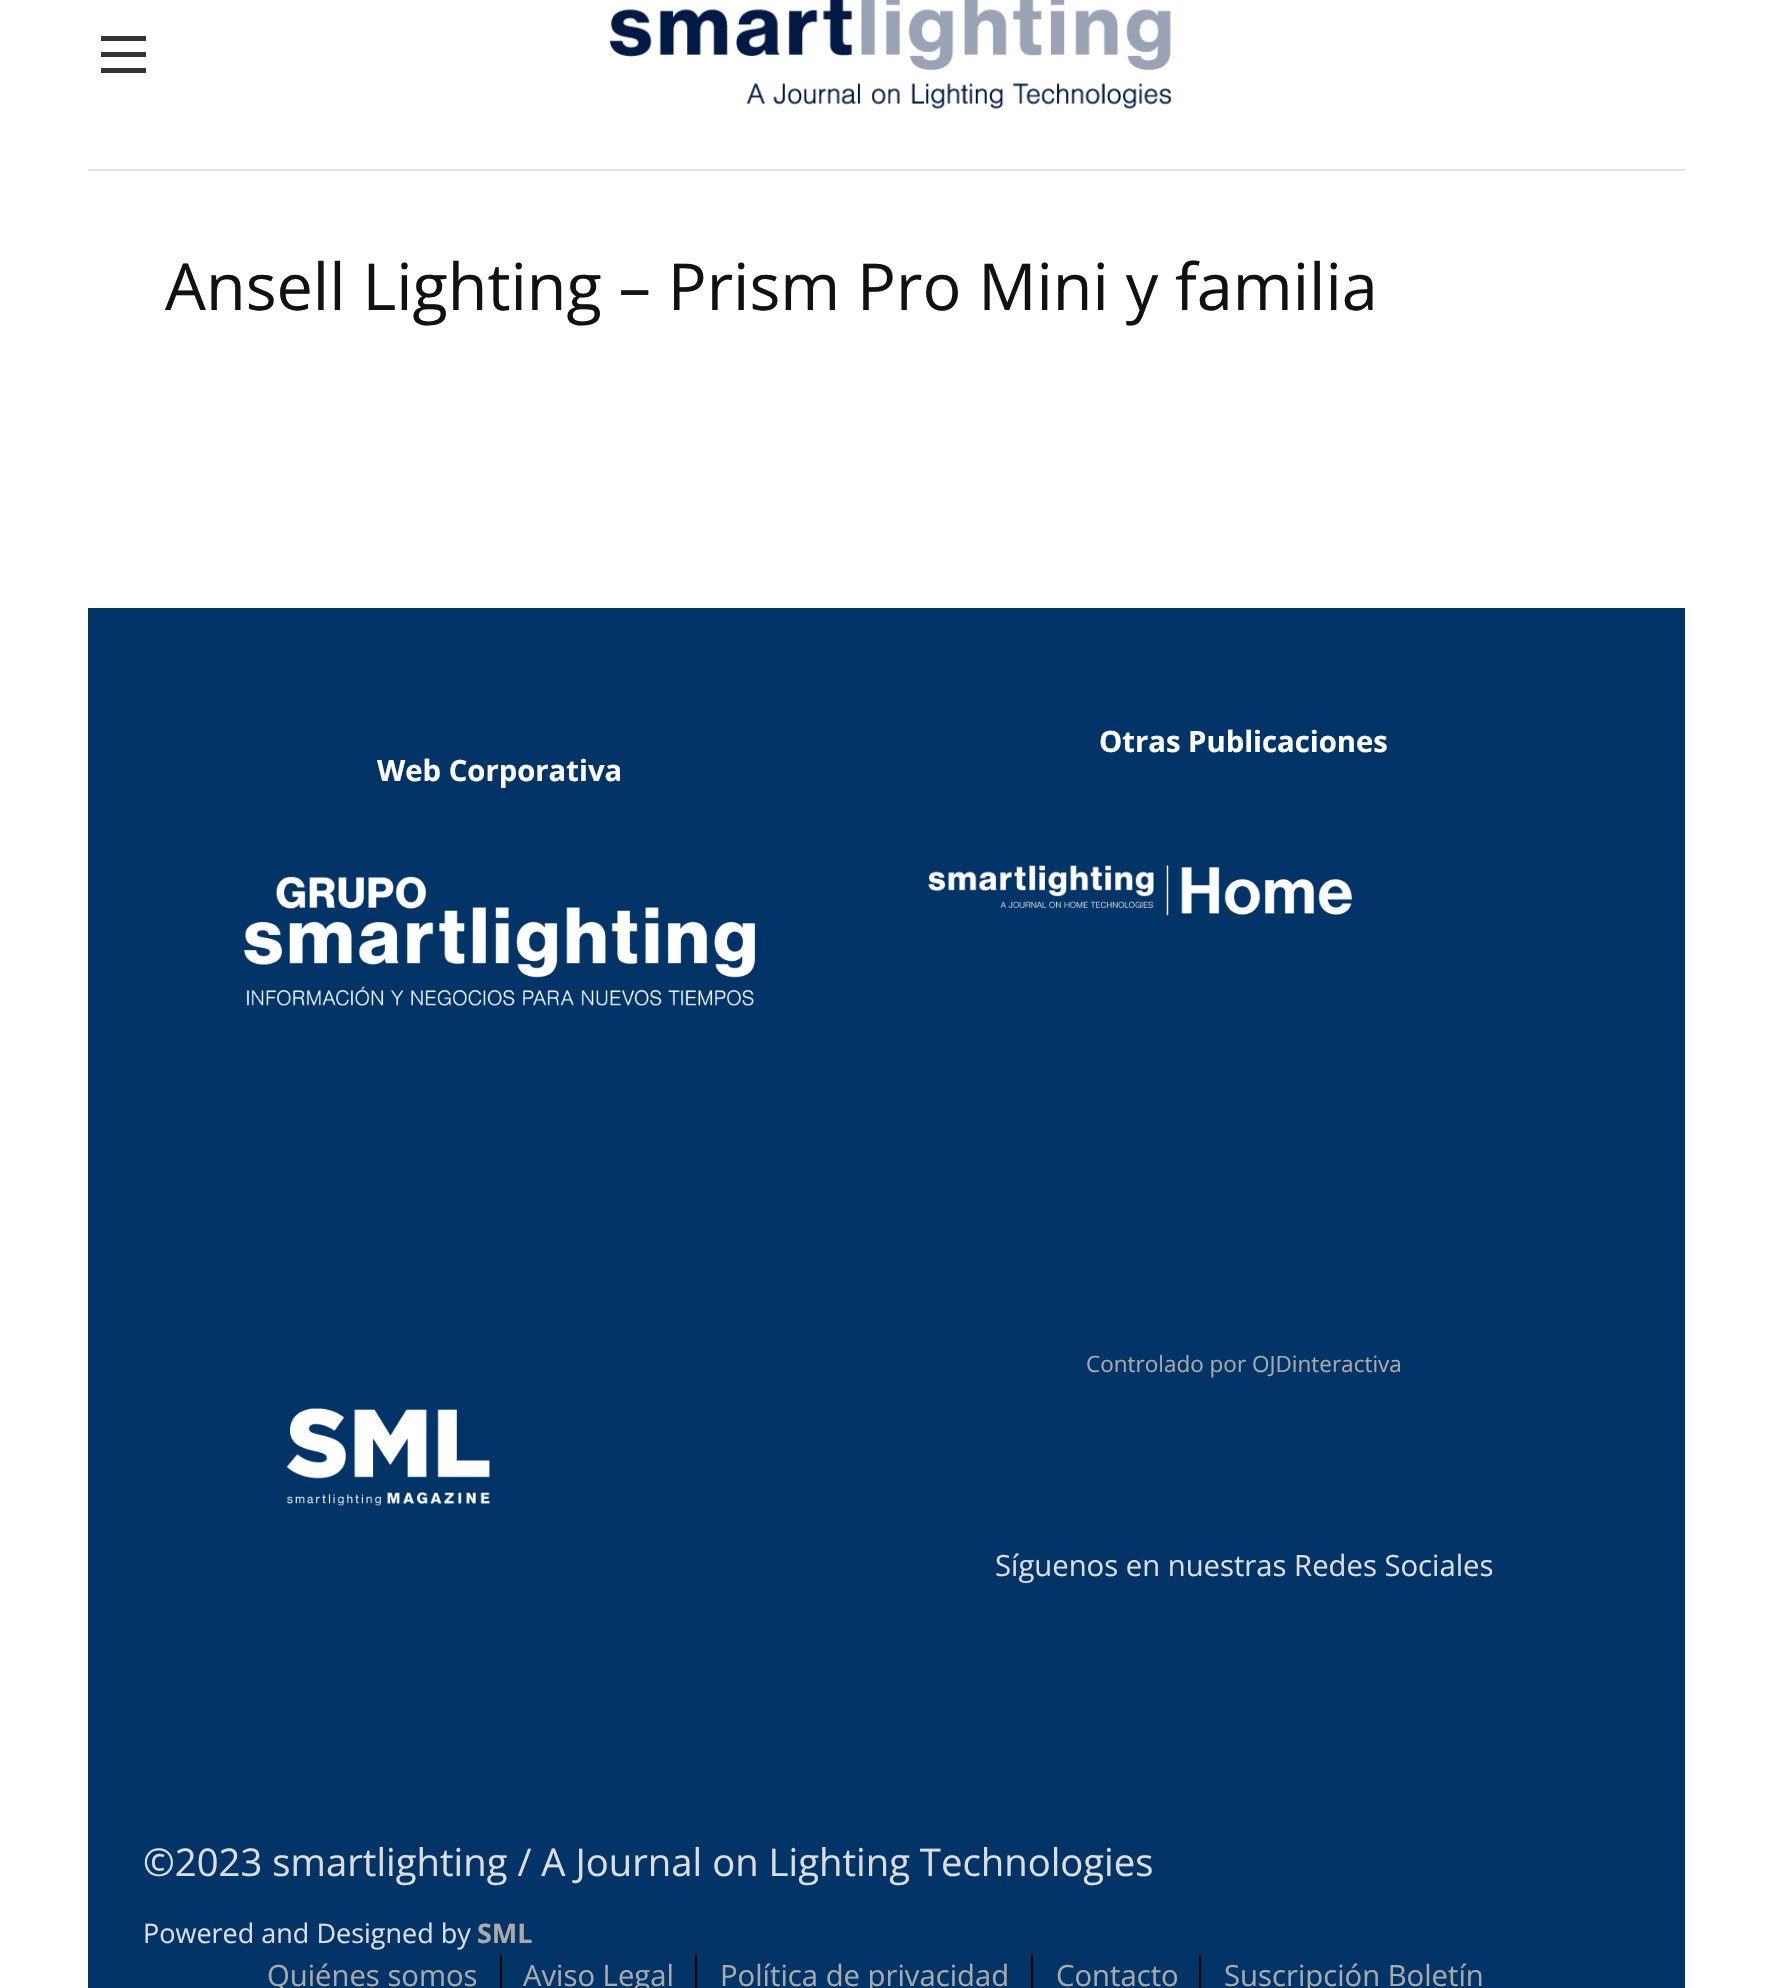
#include "include/core/SkBlurTypes.h"
#include "include/core/SkCanvas.h"
#include "include/core/SkData.h"
#include "include/core/SkFont.h"
#include "include/core/SkFontMgr.h"
#include "include/core/SkImage.h"
#include "include/core/SkMaskFilter.h"
#include "include/core/SkPaint.h"
#include "include/core/SkPathBuilder.h"
#include "include/core/SkTextBlob.h"
#include "include/effects/SkDashPathEffect.h"
#include "include/effects/SkGradientShader.h"
#include "include/utils/SkParsePath.h"

extern sk_sp<SkFontMgr> fontMgr;

static SkFont font(const char* family, int weight, float size, bool italic = false) {
    SkFontStyle style(weight, SkFontStyle::kNormal_Width,
        italic ? SkFontStyle::kItalic_Slant : SkFontStyle::kUpright_Slant);
    SkFont result(fontMgr->matchFamilyStyle(family, style), size);
    result.setSubpixel(true);
    return result;
}

static void drawLabel(SkCanvas* canvas, const char* s, float x, float y, const SkFont& font, SkColor color) {
    SkPaint ink(SkColor4f::FromColor(color));
    ink.setAntiAlias(true);
    canvas->drawString(s, x, y, font, ink);
}

static void fillRect(SkCanvas* canvas, float x, float y, float w, float h, SkColor color) {
    SkPaint ink(SkColor4f::FromColor(color));
    ink.setAntiAlias(true);
    canvas->drawRect(SkRect::MakeXYWH(x, y, w, h), ink);
}

static void drawPhoto(SkCanvas* canvas, const char* path, float x, float y, float w, float h) {
    auto image = SkImages::DeferredFromEncodedData(SkData::MakeFromFileName(path));
    canvas->drawImageRect(image, SkRect::MakeXYWH(x, y, w, h), SkSamplingOptions());
}

void draw(SkCanvas* canvas) {
    SkPaint paint;
    paint.setAntiAlias(true);
    canvas->clear(0xFFFFFFFF);
    fillRect(canvas, 101, 36, 45, 5, 0xFF333333);
    fillRect(canvas, 101, 52, 45, 5, 0xFF333333);
    fillRect(canvas, 101, 68, 45, 5, 0xFF333333);
    drawPhoto(canvas, "assets/img1.png", 610, 0, 561, 109);
    fillRect(canvas, 88, 169, 1597, 2, 0xFFE4E4E4);
    SkFont font1 = font("Open Sans", 400, 64.75f);
    drawLabel(canvas, "Ansell Lighting – Prism Pro Mini y familia", 165, 310, font1, 0xFF111111);
    fillRect(canvas, 88, 608, 1597, 1380, 0xFF023467);
    SkFont font2 = font("Open Sans", 700, 29.25f);
    drawLabel(canvas, "Otras Publicaciones", 1099, 752, font2, 0xFFFFFFFF);
    drawPhoto(canvas, "assets/img2.png", 928, 865, 424, 51);
    drawLabel(canvas, "Web Corporativa", 377, 781, font2, 0xFFFFFFFF);
    drawPhoto(canvas, "assets/img3.png", 244, 876, 511, 130);
    drawPhoto(canvas, "assets/img4.png", 286, 1408, 204, 98);
    SkFont font3 = font("Open Sans", 400, 22.5f);
    drawLabel(canvas, "Controlado por OJDinteractiva", 1086, 1372, font3, 0xFFAAAAAA);
    SkFont font4 = font("Open Sans", 400, 29.25f);
    drawLabel(canvas, "Síguenos en nuestras Redes Sociales", 995, 1576, font4, 0xFFDDDDDD);
    SkFont font5 = font("Open Sans", 400, 38.25f);
    drawLabel(canvas, "©2023 smartlighting / A Journal on Lighting Technologies", 143, 1876, font5, 0xFFDDDDDD);
    SkFont font6 = font("Open Sans", 400, 27);
    drawLabel(canvas, "Powered and Designed by", 143, 1943, font6, 0xFFDDDDDD);
    SkFont font7 = font("Open Sans", 700, 27);
    drawLabel(canvas, "SML", 477, 1943, font7, 0xFFAAAAAA);
    drawLabel(canvas, "Quiénes somos", 267, 1986, font4, 0xFFAAAAAA);
    fillRect(canvas, 500, 1955, 2, 33, 0xFF000000);
    drawLabel(canvas, "Aviso Legal", 523, 1986, font4, 0xFFAAAAAA);
    fillRect(canvas, 695, 1955, 2, 33, 0xFF000000);
    drawLabel(canvas, "Política de privacidad", 720, 1986, font4, 0xFFAAAAAA);
    fillRect(canvas, 1031, 1955, 2, 33, 0xFF000000);
    drawLabel(canvas, "Contacto", 1056, 1986, font4, 0xFFAAAAAA);
    fillRect(canvas, 1199, 1955, 2, 33, 0xFF000000);
    drawLabel(canvas, "Suscripción Boletín", 1224, 1986, font4, 0xFFAAAAAA);
}
